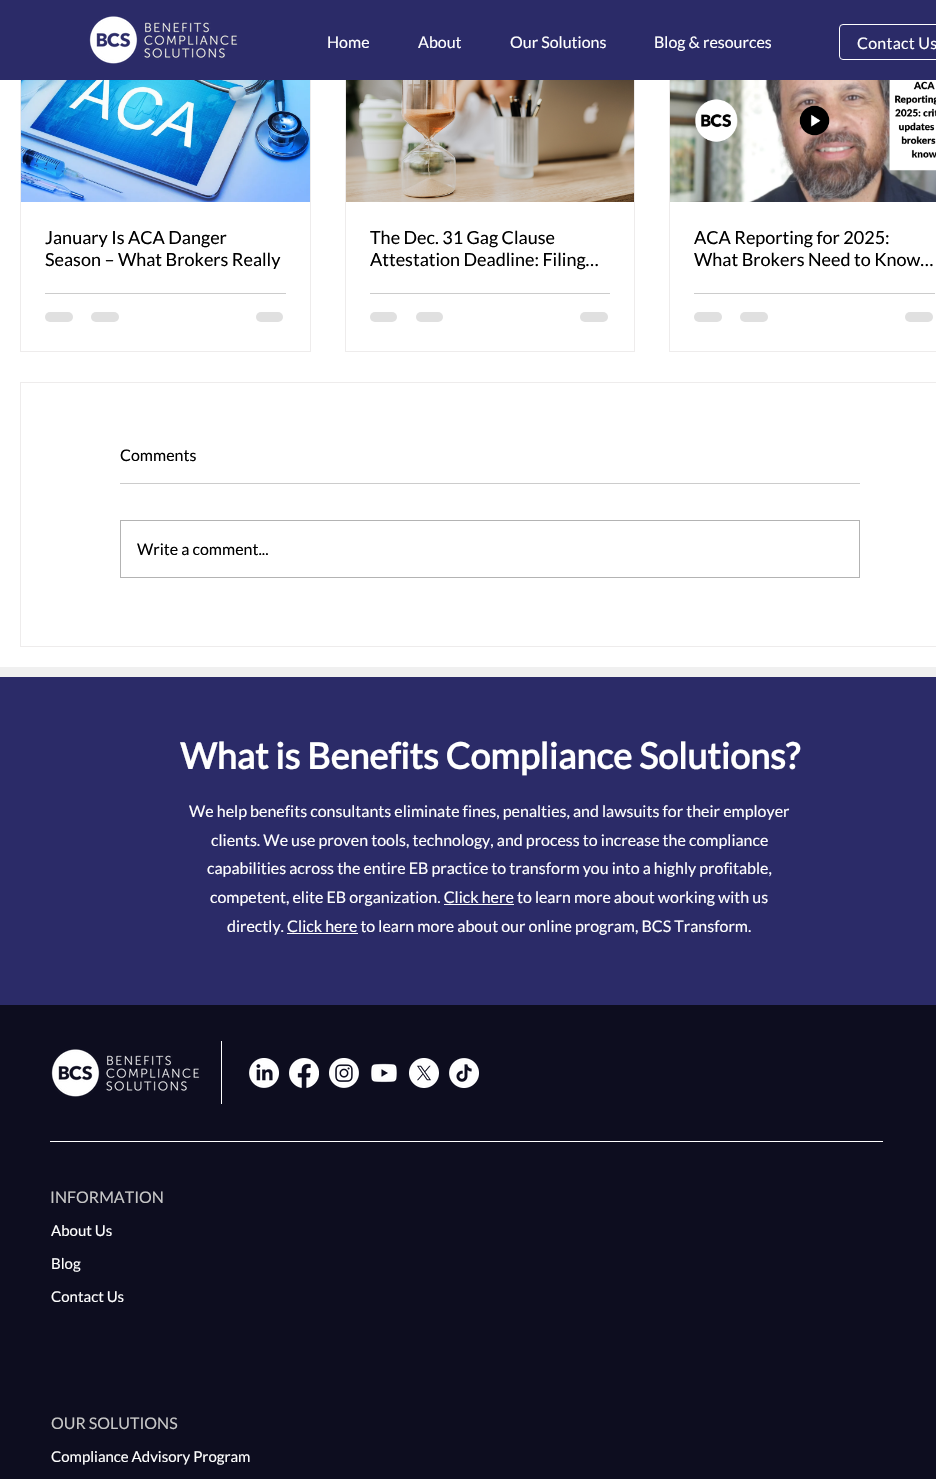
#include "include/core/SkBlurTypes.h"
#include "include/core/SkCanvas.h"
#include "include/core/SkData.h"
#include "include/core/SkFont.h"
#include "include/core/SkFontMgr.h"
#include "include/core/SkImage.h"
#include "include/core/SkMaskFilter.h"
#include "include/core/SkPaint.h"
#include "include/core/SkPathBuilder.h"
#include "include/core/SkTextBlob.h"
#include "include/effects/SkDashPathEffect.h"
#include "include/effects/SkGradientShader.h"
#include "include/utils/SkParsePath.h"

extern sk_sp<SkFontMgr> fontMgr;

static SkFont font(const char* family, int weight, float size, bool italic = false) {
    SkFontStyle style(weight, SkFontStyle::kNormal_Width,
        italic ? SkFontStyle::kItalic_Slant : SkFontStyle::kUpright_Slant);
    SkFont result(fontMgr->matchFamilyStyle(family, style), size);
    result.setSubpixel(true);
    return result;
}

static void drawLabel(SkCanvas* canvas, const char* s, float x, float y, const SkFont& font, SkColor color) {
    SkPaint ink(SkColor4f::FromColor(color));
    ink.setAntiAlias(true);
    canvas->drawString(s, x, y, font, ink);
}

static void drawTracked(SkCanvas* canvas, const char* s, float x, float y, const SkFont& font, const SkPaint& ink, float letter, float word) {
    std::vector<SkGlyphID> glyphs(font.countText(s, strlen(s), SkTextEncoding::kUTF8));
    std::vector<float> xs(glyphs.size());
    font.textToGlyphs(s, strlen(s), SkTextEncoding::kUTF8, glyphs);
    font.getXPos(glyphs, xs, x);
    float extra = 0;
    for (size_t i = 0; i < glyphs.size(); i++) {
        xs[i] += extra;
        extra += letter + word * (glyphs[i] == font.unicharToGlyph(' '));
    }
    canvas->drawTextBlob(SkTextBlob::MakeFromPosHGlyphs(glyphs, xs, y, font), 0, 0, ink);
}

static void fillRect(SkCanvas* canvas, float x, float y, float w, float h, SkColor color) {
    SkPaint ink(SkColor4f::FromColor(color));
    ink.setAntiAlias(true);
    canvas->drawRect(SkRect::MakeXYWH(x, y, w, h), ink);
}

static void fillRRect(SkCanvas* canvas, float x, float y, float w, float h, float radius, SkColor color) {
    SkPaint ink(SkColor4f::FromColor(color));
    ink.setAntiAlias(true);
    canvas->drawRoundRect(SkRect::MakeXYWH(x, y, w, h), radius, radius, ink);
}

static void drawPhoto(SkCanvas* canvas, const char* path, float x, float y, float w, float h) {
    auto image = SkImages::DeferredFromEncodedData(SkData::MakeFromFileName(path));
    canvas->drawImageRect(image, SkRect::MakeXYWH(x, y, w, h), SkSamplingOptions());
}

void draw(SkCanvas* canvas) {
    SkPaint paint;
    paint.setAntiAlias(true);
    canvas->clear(0xFFF0F0F0);
    fillRect(canvas, 0, 80, 936, 587, 0xFFFFFFFF);
    paint.setStroke(true);
    paint.setStrokeWidth(1);
    paint.setColor(0xFFEEECEC);
    canvas->drawRect(SkRect::MakeXYWH(20.5f, 38.5f, 290, 313), paint);
    canvas->drawRect(SkRect::MakeXYWH(345.5f, 38.5f, 289, 313), paint);
    canvas->drawRect(SkRect::MakeXYWH(669.5f, 38.5f, 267, 313), paint);
    fillRect(canvas, 0, 0, 936, 80, 0xFF2B2B68);
    drawPhoto(canvas, "assets/img2.png", 101, 18, 136, 40);
    drawPhoto(canvas, "assets/img1.png", 89, 16, 149, 48);
    SkFont font1 = font("Lato", 400, 16);
    drawLabel(canvas, "Home", 327, 48, font1, 0xFFFFFFFF);
    drawLabel(canvas, "About", 418, 48, font1, 0xFFFFFFFF);
    drawLabel(canvas, "Our Solutions", 510, 48, font1, 0xFFFFFFFF);
    drawLabel(canvas, "Blog & resources", 654, 48, font1, 0xFFFFFFFF);
    paint.setColor(0xFFFFFFFF);
    canvas->drawRoundRect(SkRect::MakeXYWH(839.5f, 24.5f, 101, 35), 3.5f, 3.5f, paint);
    paint.setStroke(false);
    drawTracked(canvas, "Contact Us", 857, 49, font1, paint, 0.25f, 0);
    drawPhoto(canvas, "assets/img3.png", 21, 80, 289, 122);
    SkFont font2 = font("Lato", 400, 18);
    drawLabel(canvas, "January Is ACA Danger", 45, 244, font2, 0xFF000000);
    drawLabel(canvas, "Season – What Brokers Really", 45, 266, font2, 0xFF000000);
    fillRect(canvas, 45, 293, 241, 1, 0xFFCCCCCC);
    fillRRect(canvas, 45, 312, 28, 10, 5, 0xFFE0E0E0);
    fillRRect(canvas, 91, 312, 28, 10, 5, 0xFFE0E0E0);
    fillRRect(canvas, 256, 312, 27, 10, 5, 0xFFE0E0E0);
    drawPhoto(canvas, "assets/img4.png", 346, 80, 288, 122);
    drawLabel(canvas, "The Dec. 31 Gag Clause", 370, 244, font2, 0xFF000000);
    drawLabel(canvas, "Attestation Deadline: Filing…", 370, 266, font2, 0xFF000000);
    fillRect(canvas, 370, 293, 240, 1, 0xFFCCCCCC);
    fillRRect(canvas, 370, 312, 27, 10, 5, 0xFFE0E0E0);
    fillRRect(canvas, 416, 312, 27, 10, 5, 0xFFE0E0E0);
    fillRRect(canvas, 580, 312, 28, 10, 5, 0xFFE0E0E0);
    drawPhoto(canvas, "assets/img5.png", 670, 80, 266, 122);
    drawLabel(canvas, "ACA Reporting for 2025:", 694, 244, font2, 0xFF000000);
    drawLabel(canvas, "What Brokers Need to Know…", 694, 266, font2, 0xFF000000);
    fillRect(canvas, 694, 293, 241, 1, 0xFFCCCCCC);
    fillRRect(canvas, 694, 312, 28, 10, 5, 0xFFE0E0E0);
    fillRRect(canvas, 740, 312, 28, 10, 5, 0xFFE0E0E0);
    fillRRect(canvas, 905, 312, 28, 10, 5, 0xFFE0E0E0);
    paint.setStroke(true);
    paint.setColor(0xFFEEECEC);
    canvas->drawRect(SkRect::MakeXYWH(20.5f, 382.5f, 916, 264), paint);
    drawLabel(canvas, "Comments", 120, 461, font1, 0xFF000000);
    fillRect(canvas, 120, 483, 740, 1, 0xFFCCCCCC);
    paint.setColor(0xFFB3B3B3);
    canvas->drawRect(SkRect::MakeXYWH(120.5f, 520.5f, 739, 57), paint);
    drawLabel(canvas, "Write a comment...", 137, 555, font1, 0xFF000000);
    fillRect(canvas, 0, 677, 936, 328, 0xFF2B2B68);
    SkFont font3 = font("Lato", 700, 36);
    drawLabel(canvas, "What is Benefits Compliance Solutions?", 180, 769, font3, 0xFFFFFFFF);
    drawLabel(canvas, "We help benefits consultants eliminate fines, penalties, and lawsuits for their employer", 189, 817, font1, 0xFFFFFFFF);
    drawLabel(canvas, "clients. We use proven tools, technology, and process to increase the compliance", 211, 846, font1, 0xFFFFFFFF);
    drawLabel(canvas, "capabilities across the entire EB practice to transform you into a highly profitable,", 207, 874, font1, 0xFFFFFFFF);
    drawLabel(canvas, "competent, elite EB organization. Click here to learn more about working with us", 210, 903, font1, 0xFFFFFFFF);
    fillRect(canvas, 444, 904, 70, 1, 0xFFFFFFFF);
    drawLabel(canvas, "directly. Click here to learn more about our online program, BCS Transform.", 227, 932, font1, 0xFFFFFFFF);
    fillRect(canvas, 287, 933, 71, 1, 0xFFFFFFFF);
    fillRect(canvas, 0, 1005, 936, 474, 0xFF0D0D1F);
    drawPhoto(canvas, "assets/img6.png", 51, 1049, 149, 48);
    fillRect(canvas, 221, 1041, 1, 63, 0xFFFFFFFF);
    drawPhoto(canvas, "assets/img7.png", 249, 1058, 30, 30);
    drawPhoto(canvas, "assets/img8.png", 289, 1058, 30, 30);
    drawPhoto(canvas, "assets/img9.png", 329, 1058, 30, 30);
    drawPhoto(canvas, "assets/img10.png", 371, 1063, 26, 20);
    drawPhoto(canvas, "assets/img11.png", 409, 1058, 30, 30);
    drawPhoto(canvas, "assets/img12.png", 449, 1058, 30, 30);
    fillRect(canvas, 50, 1141, 833, 1, 0xFFFFFFFF);
    drawLabel(canvas, "INFORMATION", 50, 1203, font1, 0xFFC7C7C7);
    SkFont font4 = font("Lato", 400, 15);
    drawLabel(canvas, "About Us", 51, 1236, font4, 0xFFFFFFFF);
    drawLabel(canvas, "Blog", 51, 1269, font4, 0xFFFFFFFF);
    drawLabel(canvas, "Contact Us", 51, 1302, font4, 0xFFFFFFFF);
    drawLabel(canvas, "OUR SOLUTIONS", 51, 1429, font1, 0xFFC7C7C7);
    drawLabel(canvas, "Compliance Advisory Program", 51, 1462, font4, 0xFFFFFFFF);
}
